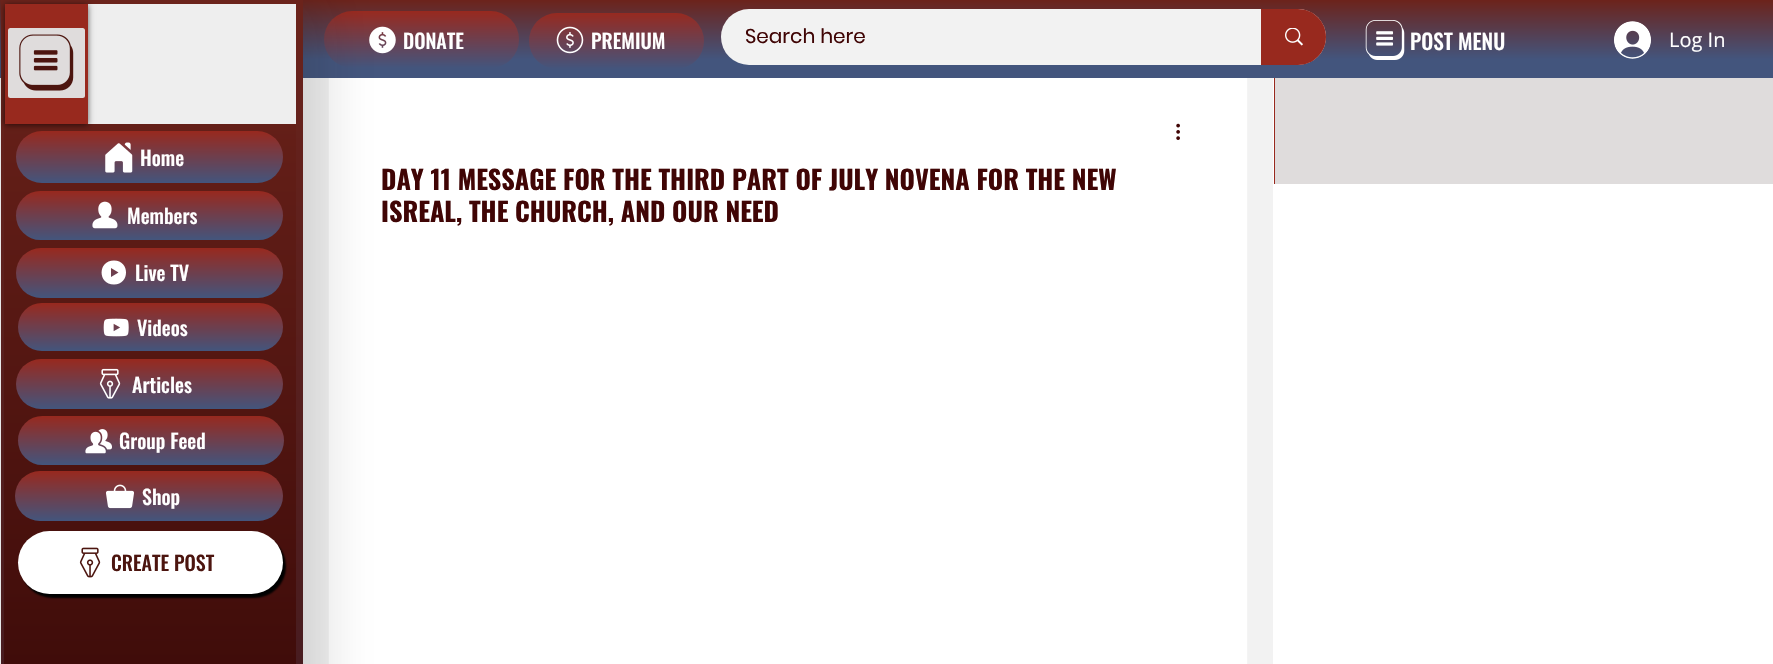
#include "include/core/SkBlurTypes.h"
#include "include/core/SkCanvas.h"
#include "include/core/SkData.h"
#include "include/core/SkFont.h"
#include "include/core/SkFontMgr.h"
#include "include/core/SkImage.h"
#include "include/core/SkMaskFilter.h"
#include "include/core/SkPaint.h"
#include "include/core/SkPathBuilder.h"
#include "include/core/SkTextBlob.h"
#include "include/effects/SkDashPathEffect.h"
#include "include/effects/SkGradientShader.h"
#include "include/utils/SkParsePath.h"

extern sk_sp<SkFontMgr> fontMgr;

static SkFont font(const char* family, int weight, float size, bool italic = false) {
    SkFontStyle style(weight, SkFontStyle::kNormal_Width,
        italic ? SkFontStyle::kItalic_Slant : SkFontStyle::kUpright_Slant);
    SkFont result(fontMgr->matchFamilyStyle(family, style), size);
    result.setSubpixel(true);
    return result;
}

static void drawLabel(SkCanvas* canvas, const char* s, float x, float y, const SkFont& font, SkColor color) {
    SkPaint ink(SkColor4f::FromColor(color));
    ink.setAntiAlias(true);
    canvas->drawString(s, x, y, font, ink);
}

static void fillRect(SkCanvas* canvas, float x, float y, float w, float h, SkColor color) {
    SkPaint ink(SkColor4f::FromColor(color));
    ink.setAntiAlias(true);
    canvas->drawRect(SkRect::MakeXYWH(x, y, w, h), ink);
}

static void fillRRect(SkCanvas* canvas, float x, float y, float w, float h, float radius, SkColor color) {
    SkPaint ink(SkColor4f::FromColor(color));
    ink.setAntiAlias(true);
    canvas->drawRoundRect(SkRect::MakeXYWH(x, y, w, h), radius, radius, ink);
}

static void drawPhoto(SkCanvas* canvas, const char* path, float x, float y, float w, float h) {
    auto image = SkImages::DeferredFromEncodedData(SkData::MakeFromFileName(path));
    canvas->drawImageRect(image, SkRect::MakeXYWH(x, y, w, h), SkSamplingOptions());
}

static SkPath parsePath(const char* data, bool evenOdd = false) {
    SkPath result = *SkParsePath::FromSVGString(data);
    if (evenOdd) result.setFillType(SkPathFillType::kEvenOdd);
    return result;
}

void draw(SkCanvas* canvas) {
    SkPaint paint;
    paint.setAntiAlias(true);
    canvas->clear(0xFFFFFFFF);
    fillRect(canvas, 303, 78, 970, 586, 0xFFF2F2F2);
    fillRect(canvas, 329, 78, 918, 586, 0xFFFFFFFF);
    paint.setStroke(true);
    paint.setStrokeWidth(1);
    paint.setColor(0xFFF4F4F4);
    canvas->drawRect(SkRect::MakeXYWH(328.5f, 61.5f, 919, 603), paint);
    paint.setStroke(false);
    {
        const SkColor colors[] = {0xFF6C231B, 0xFF43557D};
        const float stops[] = {0, 0.76f};
        const SkPoint ends[] = {{887, 0}, {887, 78}};
        paint.setShader(SkGradientShader::MakeLinear(ends, colors, stops, 2, SkTileMode::kClamp));
        paint.setAlpha(255);
    }
    canvas->drawRect(SkRect::MakeXYWH(0, 0, 1773, 78), paint);
    {
        const SkColor colors[] = {0xFF98291E, 0xFF43557D};
        const float stops[] = {0, 1};
        const SkPoint ends[] = {{421, 11}, {421, 68}};
        paint.setShader(SkGradientShader::MakeLinear(ends, colors, stops, 2, SkTileMode::kClamp));
        paint.setAlpha(255);
    }
    canvas->drawRoundRect(SkRect::MakeXYWH(324, 11, 195, 57), 28.5f, 28.5f, paint);
    drawPhoto(canvas, "assets/img1.png", 369, 26, 27, 28);
    SkFont font1 = font("Oswald", 500, 20);
    drawLabel(canvas, "DONATE", 403, 49, font1, 0xFFFFFFFF);
    {
        const SkColor colors[] = {0xFF98291E, 0xFF43557D};
        const float stops[] = {0, 1};
        const SkPoint ends[] = {{616, 12}, {616, 69}};
        paint.setShader(SkGradientShader::MakeLinear(ends, colors, stops, 2, SkTileMode::kClamp));
        paint.setAlpha(255);
    }
    canvas->drawRoundRect(SkRect::MakeXYWH(529, 13, 175, 56), 28, 28, paint);
    drawPhoto(canvas, "assets/img2.png", 556, 26, 28, 28);
    drawLabel(canvas, "PREMIUM", 591, 49, font1, 0xFFFFFFFF);
    fillRRect(canvas, 721, 9, 605, 56, 28, 0xFFF2F2F2);
    SkFont font2 = font("Poppins", 400, 20);
    drawLabel(canvas, "Search here", 745, 43, font2, 0xFF400505);
    paint.setShader(nullptr);
    paint.setColor(0xFF98291E);
    canvas->drawPath(parsePath("M1261 9H1298C1313.5 9 1326 21.5 1326 37C1326 52.5 1313.5 65 1298 65H1261Z"), paint);
    drawPhoto(canvas, "assets/img3.png", 1285, 28, 18, 18);
    drawPhoto(canvas, "assets/img4.png", 1365, 20, 40, 40);
    SkFont font3 = font("Oswald", 500, 21.25f);
    drawLabel(canvas, "POST MENU", 1410, 50, font3, 0xFFFFFFFF);
    drawPhoto(canvas, "assets/img5.png", 1614, 21, 37, 38);
    SkFont font4 = font("Open Sans", 400, 20);
    drawLabel(canvas, "Log In", 1669, 47, font4, 0xFFFFFFFF);
    paint.setColor(0x2E181818);
    paint.setMaskFilter(SkMaskFilter::MakeBlur(kNormal_SkBlurStyle, 27.5f));
    canvas->drawRect(SkRect::MakeXYWH(-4, -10, 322, 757), paint);
    paint.setMaskFilter(nullptr);
    {
        const SkColor colors[] = {0xFF6C231B, 0xFF030F29};
        const float stops[] = {0, 1};
        const SkPoint ends[] = {{152, -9}, {152, 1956}};
        paint.setShader(SkGradientShader::MakeLinear(ends, colors, stops, 2, SkTileMode::kClamp));
        paint.setAlpha(255);
    }
    canvas->drawRect(SkRect::MakeXYWH(1, 0, 302, 664), paint);
    {
        const SkColor colors[] = {0xFF6C231B, 0xFF2E0303};
        const float stops[] = {0, 1};
        const SkPoint ends[] = {{150, 3.8f}, {150, 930}};
        paint.setShader(SkGradientShader::MakeLinear(ends, colors, stops, 2, SkTileMode::kClamp));
        paint.setAlpha(255);
    }
    canvas->drawRoundRect(SkRect::MakeXYWH(4, 4, 292, 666), 6, 6, paint);
    fillRect(canvas, 88, 4, 208, 120, 0xFFEEEEEE);
    paint.setShader(nullptr);
    paint.setColor(0x99000000);
    paint.setMaskFilter(SkMaskFilter::MakeBlur(kNormal_SkBlurStyle, 3));
    canvas->drawRect(SkRect::MakeXYWH(5, 5, 83, 120), paint);
    paint.setMaskFilter(nullptr);
    fillRect(canvas, 5, 4, 83, 120, 0xFF98291E);
    fillRRect(canvas, 8, 28, 77, 70, 2.5f, 0xFFDFDCDC);
    drawPhoto(canvas, "assets/img6.png", 19, 34, 55, 57);
    {
        const SkColor colors[] = {0xFF98291E, 0xFF43557D};
        const float stops[] = {0, 1};
        const SkPoint ends[] = {{149, 131}, {149, 183}};
        paint.setShader(SkGradientShader::MakeLinear(ends, colors, stops, 2, SkTileMode::kClamp));
        paint.setAlpha(255);
    }
    canvas->drawRoundRect(SkRect::MakeXYWH(16, 131, 267, 52), 26, 26, paint);
    drawPhoto(canvas, "assets/img7.png", 105, 142, 28, 31);
    drawLabel(canvas, "Home", 140, 166, font1, 0xFFFFFFFF);
    {
        const SkColor colors[] = {0xFF98291E, 0xFF43557D};
        const float stops[] = {0, 1};
        const SkPoint ends[] = {{149, 191}, {149, 240}};
        paint.setShader(SkGradientShader::MakeLinear(ends, colors, stops, 2, SkTileMode::kClamp));
        paint.setAlpha(255);
    }
    canvas->drawRoundRect(SkRect::MakeXYWH(16, 191, 267, 49), 24.5f, 24.5f, paint);
    drawPhoto(canvas, "assets/img8.png", 92, 201, 26, 28);
    drawLabel(canvas, "Members", 127, 224, font1, 0xFFFFFFFF);
    {
        const SkColor colors[] = {0xFF98291E, 0xFF43557D};
        const float stops[] = {0, 1};
        const SkPoint ends[] = {{149, 248}, {149, 298}};
        paint.setShader(SkGradientShader::MakeLinear(ends, colors, stops, 2, SkTileMode::kClamp));
        paint.setAlpha(255);
    }
    canvas->drawRoundRect(SkRect::MakeXYWH(16, 248, 267, 50), 25, 25, paint);
    paint.setShader(nullptr);
    paint.setColor(0xFFFFFFFF);
    canvas->drawPath(parsePath("M111 277V268L118.5 272.5ZM114 260.5C97.5 260.5 97.5 284.5 114 284.5C130 284.5 130 260.5 114 260.5Z", true), paint);
    drawLabel(canvas, "Live TV", 135, 281, font1, 0xFFFFFFFF);
    {
        const SkColor colors[] = {0xFF98291E, 0xFF43557D};
        const float stops[] = {0, 1};
        const SkPoint ends[] = {{150, 303}, {150, 351}};
        paint.setShader(SkGradientShader::MakeLinear(ends, colors, stops, 2, SkTileMode::kClamp));
        paint.setAlpha(255);
    }
    canvas->drawRoundRect(SkRect::MakeXYWH(18, 303, 265, 48), 24, 24, paint);
    drawPhoto(canvas, "assets/img9.png", 103, 318, 26, 19);
    drawLabel(canvas, "Videos", 137, 336, font1, 0xFFFFFFFF);
    {
        const SkColor colors[] = {0xFF98291E, 0xFF43557D};
        const float stops[] = {0, 1};
        const SkPoint ends[] = {{149, 359}, {149, 409}};
        paint.setShader(SkGradientShader::MakeLinear(ends, colors, stops, 2, SkTileMode::kClamp));
        paint.setAlpha(255);
    }
    canvas->drawRoundRect(SkRect::MakeXYWH(16, 359, 267, 50), 25, 25, paint);
    drawPhoto(canvas, "assets/img10.png", 99, 368, 22, 31);
    drawLabel(canvas, "Articles", 132, 393, font1, 0xFFFFFFFF);
    {
        const SkColor colors[] = {0xFF98291E, 0xFF43557D};
        const float stops[] = {0, 1};
        const SkPoint ends[] = {{151, 416}, {151, 465}};
        paint.setShader(SkGradientShader::MakeLinear(ends, colors, stops, 2, SkTileMode::kClamp));
        paint.setAlpha(255);
    }
    canvas->drawRoundRect(SkRect::MakeXYWH(18, 416, 266, 49), 24.5f, 24.5f, paint);
    drawPhoto(canvas, "assets/img11.png", 85, 429, 27, 25);
    drawLabel(canvas, "Group Feed", 119, 449, font1, 0xFFFFFFFF);
    {
        const SkColor colors[] = {0xFF98291E, 0xFF43557D};
        const float stops[] = {0, 1};
        const SkPoint ends[] = {{149, 471}, {149, 521}};
        paint.setShader(SkGradientShader::MakeLinear(ends, colors, stops, 2, SkTileMode::kClamp));
        paint.setAlpha(255);
    }
    canvas->drawRoundRect(SkRect::MakeXYWH(15, 471, 268, 50), 25, 25, paint);
    drawPhoto(canvas, "assets/img12.png", 106, 484, 28, 25);
    drawLabel(canvas, "Shop", 142, 505, font1, 0xFFFFFFFF);
    paint.setShader(nullptr);
    paint.setColor(0xFF000000);
    paint.setMaskFilter(SkMaskFilter::MakeBlur(kNormal_SkBlurStyle, 1));
    canvas->drawRoundRect(SkRect::MakeXYWH(21, 535, 265, 63), 31.5f, 31.5f, paint);
    paint.setMaskFilter(nullptr);
    fillRRect(canvas, 18, 531, 265, 63, 31.5f, 0xFFFFFFFF);
    drawPhoto(canvas, "assets/img13.png", 79, 547, 22, 31);
    drawLabel(canvas, "CREATE POST", 111, 571, font1, 0xFF4C150F);
    fillRect(canvas, 1274, 78, 1, 106, 0xFF98291E);
    fillRect(canvas, 1275, 78, 498, 106, 0xFFDFDCDC);
    drawPhoto(canvas, "assets/img14.png", 1176, 123, 4, 17);
    SkFont font5 = font("Oswald", 700, 26.25f);
    drawLabel(canvas, "DAY 11 MESSAGE FOR THE THIRD PART OF JULY NOVENA FOR THE NEW", 381, 190, font5, 0xFF400505);
    drawLabel(canvas, "ISREAL, THE CHURCH, AND OUR NEED", 381, 222, font5, 0xFF400505);
}
